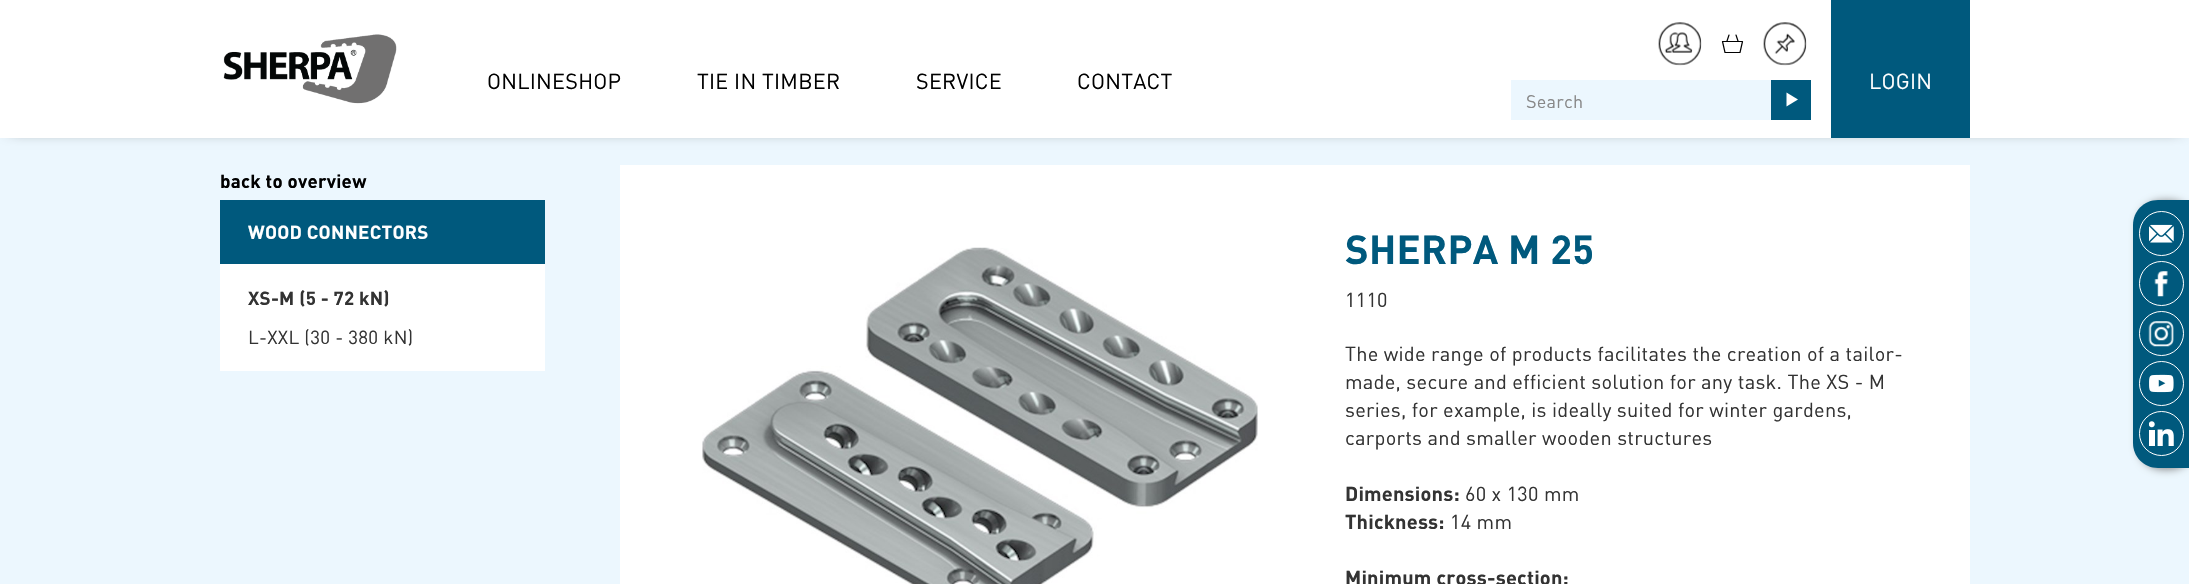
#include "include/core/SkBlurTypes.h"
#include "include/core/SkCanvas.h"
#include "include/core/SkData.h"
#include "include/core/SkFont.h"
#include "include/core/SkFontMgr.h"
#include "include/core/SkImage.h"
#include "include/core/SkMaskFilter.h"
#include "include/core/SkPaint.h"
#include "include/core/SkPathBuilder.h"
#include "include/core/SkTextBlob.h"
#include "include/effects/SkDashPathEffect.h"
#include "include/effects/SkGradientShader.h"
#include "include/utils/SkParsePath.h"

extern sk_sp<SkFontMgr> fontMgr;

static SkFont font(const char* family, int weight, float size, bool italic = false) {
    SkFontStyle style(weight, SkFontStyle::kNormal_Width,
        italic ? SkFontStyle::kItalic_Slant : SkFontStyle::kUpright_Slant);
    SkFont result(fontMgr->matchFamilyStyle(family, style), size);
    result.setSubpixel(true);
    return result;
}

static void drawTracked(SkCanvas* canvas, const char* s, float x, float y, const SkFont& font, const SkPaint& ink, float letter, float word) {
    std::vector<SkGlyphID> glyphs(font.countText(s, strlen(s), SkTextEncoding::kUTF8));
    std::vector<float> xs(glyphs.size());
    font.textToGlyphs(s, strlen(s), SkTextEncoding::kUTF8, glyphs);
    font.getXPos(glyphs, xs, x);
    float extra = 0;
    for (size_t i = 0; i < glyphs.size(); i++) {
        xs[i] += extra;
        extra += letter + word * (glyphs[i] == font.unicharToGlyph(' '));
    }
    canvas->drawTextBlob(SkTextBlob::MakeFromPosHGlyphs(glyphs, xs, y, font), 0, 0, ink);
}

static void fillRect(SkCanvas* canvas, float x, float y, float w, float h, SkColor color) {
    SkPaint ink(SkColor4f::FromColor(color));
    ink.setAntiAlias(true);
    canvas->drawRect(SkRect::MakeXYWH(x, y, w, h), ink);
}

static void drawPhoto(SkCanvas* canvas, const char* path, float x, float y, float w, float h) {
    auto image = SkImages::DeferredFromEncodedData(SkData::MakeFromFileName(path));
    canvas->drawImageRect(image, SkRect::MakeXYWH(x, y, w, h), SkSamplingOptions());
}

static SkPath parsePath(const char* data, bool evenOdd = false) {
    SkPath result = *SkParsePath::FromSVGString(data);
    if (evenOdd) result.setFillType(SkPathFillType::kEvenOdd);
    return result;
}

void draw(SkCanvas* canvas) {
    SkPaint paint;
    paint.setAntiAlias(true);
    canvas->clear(0xFFECF7FE);
    paint.setColor(0xFF333333);
    paint.setMaskFilter(SkMaskFilter::MakeBlur(kNormal_SkBlurStyle, 7.5f));
    canvas->drawRect(SkRect::MakeXYWH(10, 10, 2170, 118), paint);
    paint.setMaskFilter(nullptr);
    fillRect(canvas, 0, 0, 2189, 138, 0xFFFFFFFF);
    drawPhoto(canvas, "assets/img1.png", 223, 34, 174, 70);
    SkFont font1 = font("DIN", 400, 21.5f);
    paint.setColor(0xFF000000);
    drawTracked(canvas, "ONLINESHOP", 487, 89, font1, paint, 0.25f, 0);
    drawTracked(canvas, "TIE IN TIMBER", 697, 89, font1, paint, 0.25f, 0);
    drawTracked(canvas, "SERVICE", 916, 89, font1, paint, 0.25f, 0);
    drawTracked(canvas, "CONTACT", 1077, 89, font1, paint, 0.25f, 0);
    fillRect(canvas, 1831, 0, 139, 138, 0xFF00597D);
    paint.setColor(0xFFFFFFFF);
    drawTracked(canvas, "LOGIN", 1869, 89, font1, paint, 0.25f, 0);
    drawPhoto(canvas, "assets/img2.png", 1658, 22, 44, 44);
    paint.setStroke(true);
    paint.setStrokeWidth(1.2f);
    paint.setStrokeCap(SkPaint::kRound_Cap);
    paint.setStrokeJoin(SkPaint::kRound_Join);
    paint.setColor(0xFF010101);
    canvas->drawPath(parsePath("M1740 52.5H1725L1722.5 41.5H1742.5ZM1738 41L1736 35M1727 41L1729 35"), paint);
    drawPhoto(canvas, "assets/img3.png", 1763, 22, 44, 44);
    fillRect(canvas, 1511, 80, 260, 40, 0xFFECF7FE);
    SkFont font2 = font("DIN", 400, 18);
    paint.setStroke(false);
    paint.setColor(0xFF888888);
    drawTracked(canvas, "Search", 1526, 108, font2, paint, 0.2f, 0);
    fillRect(canvas, 1771, 80, 40, 40, 0xFF00597D);
    paint.setColor(0xFFFFFFFF);
    canvas->drawPath(parsePath("M1786.5 92.5V106.5L1798 99.5Z"), paint);
    SkFont font3 = font("DIN", 700, 18.75f);
    paint.setColor(0xFF000000);
    drawTracked(canvas, "back to overview", 220, 188, font3, paint, 0.25f, 0);
    fillRect(canvas, 220, 200, 325, 64, 0xFF00597D);
    paint.setColor(0xFFFFFFFF);
    drawTracked(canvas, "WOOD CONNECTORS", 248, 239, font3, paint, 0.25f, 0);
    fillRect(canvas, 220, 264, 325, 107, 0xFFFFFFFF);
    paint.setColor(0xFF333333);
    drawTracked(canvas, "XS-M (5 - 72 kN)", 248, 305, font3, paint, 0.25f, 0);
    SkFont font4 = font("DIN", 400, 18.75f);
    drawTracked(canvas, "L-XXL (30 - 380 kN)", 248, 344, font4, paint, 0.25f, 0);
    fillRect(canvas, 620, 165, 1350, 419, 0xFFFFFFFF);
    drawPhoto(canvas, "assets/img4.png", 702, 247, 556, 337);
    SkFont font5 = font("DIN", 700, 40);
    paint.setColor(0xFF00597D);
    drawTracked(canvas, "SHERPA M 25", 1345, 264, font5, paint, 0.25f, 0);
    SkFont font6 = font("DIN", 400, 20);
    paint.setColor(0xFF333333);
    drawTracked(canvas, "1110", 1345, 307, font6, paint, 0.25f, 0);
    drawTracked(canvas, "The wide range of products facilitates the creation of a tailor-", 1345, 361, font6, paint, 0.25f, 0);
    drawTracked(canvas, "made, secure and efficient solution for any task. The XS - M", 1345, 389, font6, paint, 0.25f, 0);
    drawTracked(canvas, "series, for example, is ideally suited for winter gardens,", 1345, 417, font6, paint, 0.25f, 0);
    drawTracked(canvas, "carports and smaller wooden structures", 1345, 445, font6, paint, 0.25f, 0);
    SkFont font7 = font("DIN", 700, 20);
    drawTracked(canvas, "Dimensions:", 1345, 501, font7, paint, 0.2f, 0);
    drawTracked(canvas, "60 x 130 mm", 1465, 501, font6, paint, 0.25f, 0);
    drawTracked(canvas, "Thickness:", 1345, 529, font7, paint, 0.2f, 0);
    drawTracked(canvas, "14 mm", 1450, 529, font6, paint, 0.25f, 0);
    drawTracked(canvas, "Minimum cross-section:", 1345, 585, font7, paint, 0.2f, 0);
    paint.setColor(0xFF7D7D7D);
    paint.setMaskFilter(SkMaskFilter::MakeBlur(kNormal_SkBlurStyle, 4));
    canvas->drawRoundRect(SkRect::MakeXYWH(2138, 201, 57, 268), 25, 25, paint);
    paint.setMaskFilter(nullptr);
    paint.setColor(0xFF00597D);
    canvas->drawPath(parsePath("M2158 200H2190V468H2158C2144 468 2133 457 2133 443V225C2133 211 2144 200 2158 200Z"), paint);
    drawPhoto(canvas, "assets/img5.png", 2149, 224, 25, 19);
    paint.setStroke(true);
    paint.setStrokeWidth(1);
    paint.setStrokeCap(SkPaint::kButt_Cap);
    paint.setStrokeJoin(SkPaint::kMiter_Join);
    paint.setColor(0xFFFFFFFF);
    canvas->drawCircle(2161.5f, 233.5f, 22, paint);
    drawPhoto(canvas, "assets/img6.png", 2154, 271, 14, 26);
    canvas->drawCircle(2161.5f, 283.5f, 22, paint);
    drawPhoto(canvas, "assets/img7.png", 2148, 321, 26, 26);
    canvas->drawCircle(2161.5f, 333.5f, 22, paint);
    drawPhoto(canvas, "assets/img8.png", 2149, 374, 25, 19);
    canvas->drawCircle(2161.5f, 383.5f, 22, paint);
    drawPhoto(canvas, "assets/img9.png", 2149, 421, 25, 25);
    canvas->drawCircle(2161.5f, 433.5f, 22, paint);
}
